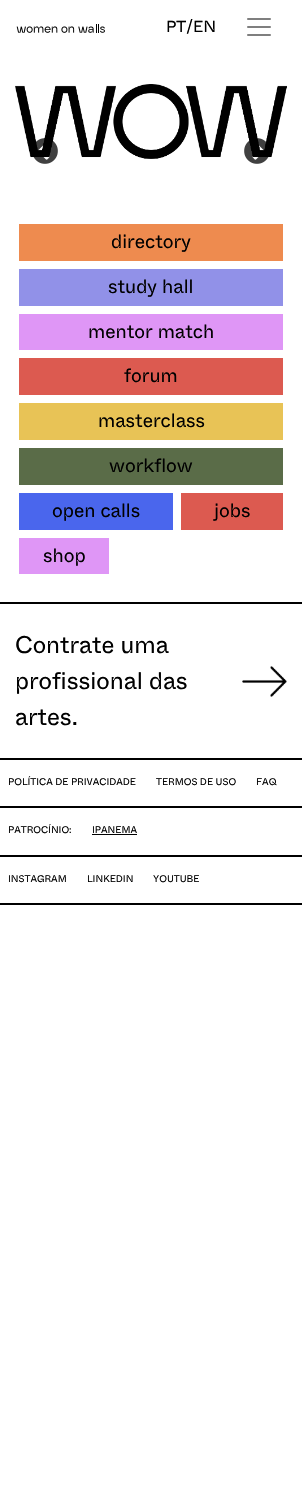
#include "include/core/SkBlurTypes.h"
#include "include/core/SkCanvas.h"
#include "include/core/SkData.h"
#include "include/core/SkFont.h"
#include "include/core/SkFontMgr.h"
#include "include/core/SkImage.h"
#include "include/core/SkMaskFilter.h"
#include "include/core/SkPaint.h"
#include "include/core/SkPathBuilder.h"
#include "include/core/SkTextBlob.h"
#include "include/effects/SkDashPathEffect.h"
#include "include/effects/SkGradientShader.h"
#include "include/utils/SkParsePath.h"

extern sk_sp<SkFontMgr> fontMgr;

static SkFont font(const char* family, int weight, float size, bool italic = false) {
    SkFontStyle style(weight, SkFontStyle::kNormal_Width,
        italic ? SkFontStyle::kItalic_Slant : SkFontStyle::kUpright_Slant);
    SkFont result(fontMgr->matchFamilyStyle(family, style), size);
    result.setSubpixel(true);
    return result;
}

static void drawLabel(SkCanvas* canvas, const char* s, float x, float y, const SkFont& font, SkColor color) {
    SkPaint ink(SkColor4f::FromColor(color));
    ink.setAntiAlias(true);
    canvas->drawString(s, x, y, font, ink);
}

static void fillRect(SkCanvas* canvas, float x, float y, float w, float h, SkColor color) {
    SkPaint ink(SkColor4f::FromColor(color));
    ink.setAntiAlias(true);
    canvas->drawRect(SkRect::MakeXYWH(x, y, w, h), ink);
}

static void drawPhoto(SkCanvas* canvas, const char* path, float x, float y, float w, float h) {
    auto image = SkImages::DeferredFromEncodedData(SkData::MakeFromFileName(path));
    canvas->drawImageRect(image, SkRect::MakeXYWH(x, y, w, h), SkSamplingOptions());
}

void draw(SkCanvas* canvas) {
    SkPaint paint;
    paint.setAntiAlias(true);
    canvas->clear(0xFFFFFFFF);
    drawPhoto(canvas, "assets/img1.png", 16, 24, 89, 9);
    SkFont font1 = font("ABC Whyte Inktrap", 400, 16);
    drawLabel(canvas, "PT/EN", 166, 32, font1, 0xFF000000);
    drawPhoto(canvas, "assets/img2.png", 247, 18, 24, 18);
    drawPhoto(canvas, "assets/img3.png", 15, 84, 272, 75);
    drawPhoto(canvas, "assets/img4.png", 33, 138, 25, 26);
    drawPhoto(canvas, "assets/img5.png", 244, 138, 25, 26);
    fillRect(canvas, 19, 224, 264, 37, 0xFFEE8B4F);
    SkFont font2 = font("ABC Whyte Inktrap", 400, 19.25f);
    drawLabel(canvas, "directory", 111, 248, font2, 0xFF000000);
    fillRect(canvas, 19, 269, 264, 37, 0xFF9191E8);
    drawLabel(canvas, "study hall", 108, 293, font2, 0xFF000000);
    fillRect(canvas, 19, 314, 264, 36, 0xFFDF96F6);
    drawLabel(canvas, "mentor match", 88, 338, font2, 0xFF000000);
    fillRect(canvas, 19, 358, 264, 37, 0xFFDC5A50);
    drawLabel(canvas, "forum", 124, 382, font2, 0xFF000000);
    fillRect(canvas, 19, 403, 264, 37, 0xFFE8C356);
    drawLabel(canvas, "masterclass", 98, 427, font2, 0xFF000000);
    fillRect(canvas, 19, 448, 264, 37, 0xFF5A6C48);
    drawLabel(canvas, "workflow", 109, 472, font2, 0xFF000000);
    fillRect(canvas, 19, 493, 154, 37, 0xFF4A66ED);
    drawLabel(canvas, "open calls", 52, 517, font2, 0xFF000000);
    fillRect(canvas, 181, 493, 102, 37, 0xFFDC5A50);
    drawLabel(canvas, "jobs", 214, 517, font2, 0xFF000000);
    fillRect(canvas, 19, 538, 90, 36, 0xFFDF96F6);
    drawLabel(canvas, "shop", 43, 562, font2, 0xFF000000);
    fillRect(canvas, 0, 602, 302, 2, 0xFF000000);
    fillRect(canvas, 0, 758, 302, 2, 0xFF000000);
    SkFont font3 = font("ABC Whyte Inktrap", 400, 24);
    drawLabel(canvas, "Contrate uma", 15, 653, font3, 0xFF000000);
    drawLabel(canvas, "profissional das", 15, 689, font3, 0xFF000000);
    drawLabel(canvas, "artes.", 15, 725, font3, 0xFF000000);
    drawPhoto(canvas, "assets/img6.png", 242, 666, 45, 31);
    fillRect(canvas, 0, 806, 302, 2, 0xFF000000);
    SkFont font4 = font("ABC Whyte Inktrap", 400, 9.6f);
    drawLabel(canvas, "POLÍTICA DE PRIVACIDADE", 8, 785, font4, 0xFF000000);
    drawLabel(canvas, "TERMOS DE USO", 156, 785, font4, 0xFF000000);
    drawLabel(canvas, "FAQ", 256, 785, font4, 0xFF000000);
    fillRect(canvas, 0, 855, 302, 2, 0xFF000000);
    drawLabel(canvas, "PATROCÍNIO:", 8, 833, font4, 0xFF000000);
    drawLabel(canvas, "IPANEMA", 92, 833, font4, 0xFF000000);
    fillRect(canvas, 92, 834, 45, 1, 0xFF000000);
    fillRect(canvas, 0, 903, 302, 2, 0xFF000000);
    drawLabel(canvas, "INSTAGRAM", 8, 882, font4, 0xFF000000);
    drawLabel(canvas, "LINKEDIN", 87, 882, font4, 0xFF000000);
    drawLabel(canvas, "YOUTUBE", 153, 882, font4, 0xFF000000);
}
